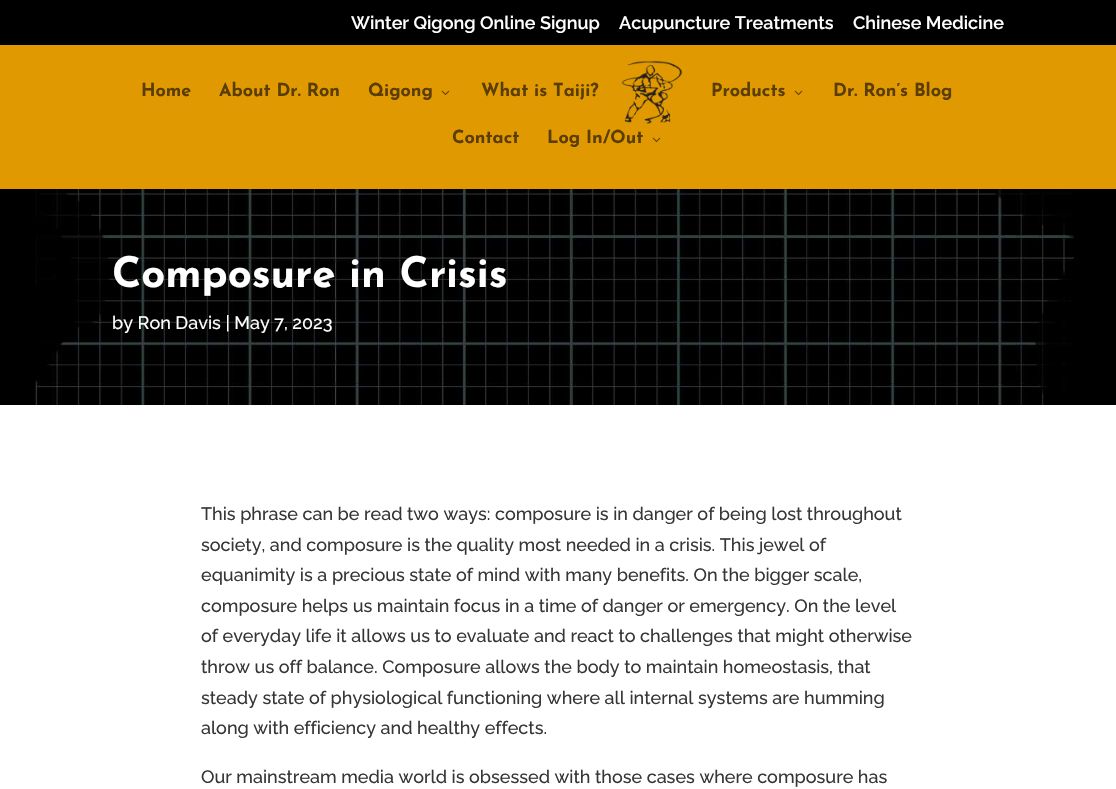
#include "include/core/SkBlurTypes.h"
#include "include/core/SkCanvas.h"
#include "include/core/SkData.h"
#include "include/core/SkFont.h"
#include "include/core/SkFontMgr.h"
#include "include/core/SkImage.h"
#include "include/core/SkMaskFilter.h"
#include "include/core/SkPaint.h"
#include "include/core/SkPathBuilder.h"
#include "include/core/SkTextBlob.h"
#include "include/effects/SkDashPathEffect.h"
#include "include/effects/SkGradientShader.h"
#include "include/utils/SkParsePath.h"

extern sk_sp<SkFontMgr> fontMgr;

static SkFont font(const char* family, int weight, float size, bool italic = false) {
    SkFontStyle style(weight, SkFontStyle::kNormal_Width,
        italic ? SkFontStyle::kItalic_Slant : SkFontStyle::kUpright_Slant);
    SkFont result(fontMgr->matchFamilyStyle(family, style), size);
    result.setSubpixel(true);
    return result;
}

static void drawLabel(SkCanvas* canvas, const char* s, float x, float y, const SkFont& font, SkColor color) {
    SkPaint ink(SkColor4f::FromColor(color));
    ink.setAntiAlias(true);
    canvas->drawString(s, x, y, font, ink);
}

static void fillRect(SkCanvas* canvas, float x, float y, float w, float h, SkColor color) {
    SkPaint ink(SkColor4f::FromColor(color));
    ink.setAntiAlias(true);
    canvas->drawRect(SkRect::MakeXYWH(x, y, w, h), ink);
}

static void drawPhoto(SkCanvas* canvas, const char* path, float x, float y, float w, float h) {
    auto image = SkImages::DeferredFromEncodedData(SkData::MakeFromFileName(path));
    canvas->drawImageRect(image, SkRect::MakeXYWH(x, y, w, h), SkSamplingOptions());
}

void draw(SkCanvas* canvas) {
    SkPaint paint;
    paint.setAntiAlias(true);
    canvas->clear(0xFFFFFFFF);
    fillRect(canvas, 0, 0, 1116, 45, 0xFF000000);
    SkFont font1 = font("Raleway", 600, 18);
    drawLabel(canvas, "Winter Qigong Online Signup", 351, 29, font1, 0xFFFFFFFF);
    drawLabel(canvas, "Acupuncture Treatments", 619, 29, font1, 0xFFFFFFFF);
    drawLabel(canvas, "Chinese Medicine", 853, 29, font1, 0xFFFFFFFF);
    drawPhoto(canvas, "assets/img3.png", 0, 189, 1116, 216);
    fillRect(canvas, 78, 189, 901, 1, 0x1A000000);
    fillRect(canvas, 0, 45, 1116, 144, 0xFFE09900);
    SkFont font2 = font("Josefin Sans", 700, 18);
    drawLabel(canvas, "Home", 141, 96, font2, 0xFF5A3D00);
    drawLabel(canvas, "About Dr. Ron", 219, 96, font2, 0xFF5A3D00);
    drawLabel(canvas, "Qigong", 368, 96, font2, 0xFF5A3D00);
    drawPhoto(canvas, "assets/img1.png", 441, 90, 9, 5);
    drawLabel(canvas, "What is Taiji?", 481, 96, font2, 0xFF5A3D00);
    drawPhoto(canvas, "assets/img2.png", 621, 60, 62, 64);
    drawLabel(canvas, "Products", 711, 96, font2, 0xFF5A3D00);
    drawPhoto(canvas, "assets/img1.png", 794, 90, 9, 5);
    drawLabel(canvas, "Dr. Ron’s Blog", 833, 96, font2, 0xFF5A3D00);
    drawLabel(canvas, "Contact", 452, 143, font2, 0xFF5A3D00);
    drawLabel(canvas, "Log In/Out", 547, 143, font2, 0xFF5A3D00);
    drawPhoto(canvas, "assets/img1.png", 652, 137, 9, 5);
    SkFont font3 = font("Josefin Sans", 700, 42);
    drawLabel(canvas, "Composure in Crisis", 112, 287, font3, 0xFFFFFFFF);
    SkFont font4 = font("Raleway", 500, 18);
    drawLabel(canvas, "by Ron Davis | May 7, 2023", 112, 329, font4, 0xFFFFFFFF);
    drawLabel(canvas, "This phrase can be read two ways: composure is in danger of being lost throughout", 201, 520, font4, 0xFF363636);
    drawLabel(canvas, "society, and composure is the quality most needed in a crisis. This jewel of", 201, 551, font4, 0xFF363636);
    drawLabel(canvas, "equanimity is a precious state of mind with many benefits. On the bigger scale,", 201, 581, font4, 0xFF363636);
    drawLabel(canvas, "composure helps us maintain focus in a time of danger or emergency. On the level", 201, 612, font4, 0xFF363636);
    drawLabel(canvas, "of everyday life it allows us to evaluate and react to challenges that might otherwise", 201, 642, font4, 0xFF363636);
    drawLabel(canvas, "throw us off balance. Composure allows the body to maintain homeostasis, that", 201, 673, font4, 0xFF363636);
    drawLabel(canvas, "steady state of physiological functioning where all internal systems are humming", 201, 704, font4, 0xFF363636);
    drawLabel(canvas, "along with efficiency and healthy effects.", 201, 734, font4, 0xFF363636);
    drawLabel(canvas, "Our mainstream media world is obsessed with those cases where composure has", 201, 783, font4, 0xFF363636);
}
